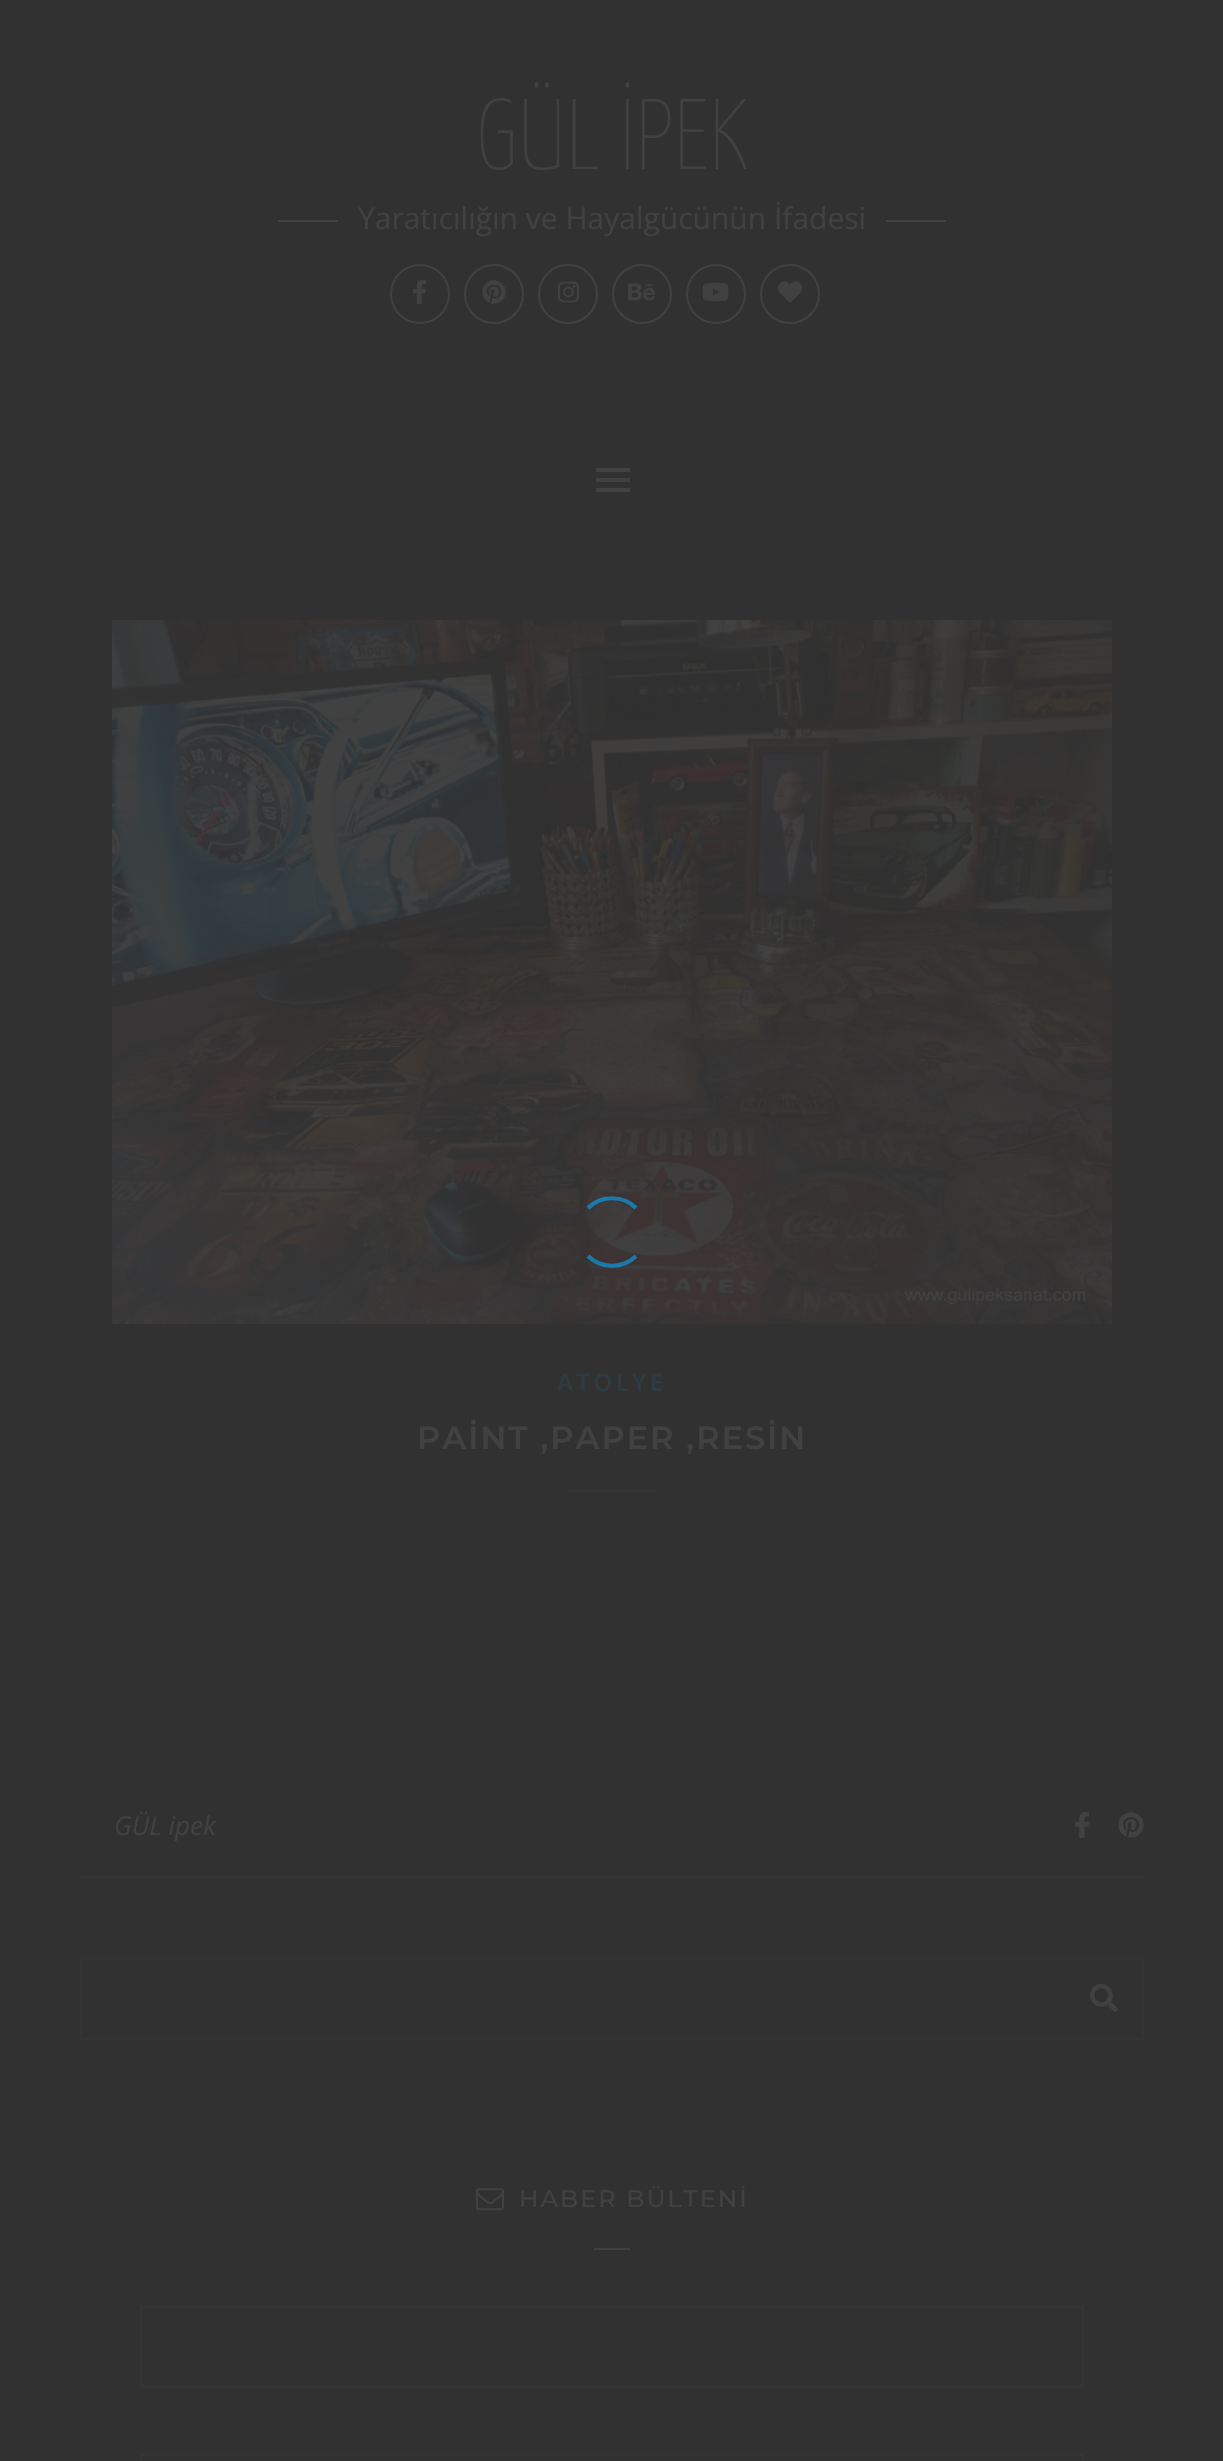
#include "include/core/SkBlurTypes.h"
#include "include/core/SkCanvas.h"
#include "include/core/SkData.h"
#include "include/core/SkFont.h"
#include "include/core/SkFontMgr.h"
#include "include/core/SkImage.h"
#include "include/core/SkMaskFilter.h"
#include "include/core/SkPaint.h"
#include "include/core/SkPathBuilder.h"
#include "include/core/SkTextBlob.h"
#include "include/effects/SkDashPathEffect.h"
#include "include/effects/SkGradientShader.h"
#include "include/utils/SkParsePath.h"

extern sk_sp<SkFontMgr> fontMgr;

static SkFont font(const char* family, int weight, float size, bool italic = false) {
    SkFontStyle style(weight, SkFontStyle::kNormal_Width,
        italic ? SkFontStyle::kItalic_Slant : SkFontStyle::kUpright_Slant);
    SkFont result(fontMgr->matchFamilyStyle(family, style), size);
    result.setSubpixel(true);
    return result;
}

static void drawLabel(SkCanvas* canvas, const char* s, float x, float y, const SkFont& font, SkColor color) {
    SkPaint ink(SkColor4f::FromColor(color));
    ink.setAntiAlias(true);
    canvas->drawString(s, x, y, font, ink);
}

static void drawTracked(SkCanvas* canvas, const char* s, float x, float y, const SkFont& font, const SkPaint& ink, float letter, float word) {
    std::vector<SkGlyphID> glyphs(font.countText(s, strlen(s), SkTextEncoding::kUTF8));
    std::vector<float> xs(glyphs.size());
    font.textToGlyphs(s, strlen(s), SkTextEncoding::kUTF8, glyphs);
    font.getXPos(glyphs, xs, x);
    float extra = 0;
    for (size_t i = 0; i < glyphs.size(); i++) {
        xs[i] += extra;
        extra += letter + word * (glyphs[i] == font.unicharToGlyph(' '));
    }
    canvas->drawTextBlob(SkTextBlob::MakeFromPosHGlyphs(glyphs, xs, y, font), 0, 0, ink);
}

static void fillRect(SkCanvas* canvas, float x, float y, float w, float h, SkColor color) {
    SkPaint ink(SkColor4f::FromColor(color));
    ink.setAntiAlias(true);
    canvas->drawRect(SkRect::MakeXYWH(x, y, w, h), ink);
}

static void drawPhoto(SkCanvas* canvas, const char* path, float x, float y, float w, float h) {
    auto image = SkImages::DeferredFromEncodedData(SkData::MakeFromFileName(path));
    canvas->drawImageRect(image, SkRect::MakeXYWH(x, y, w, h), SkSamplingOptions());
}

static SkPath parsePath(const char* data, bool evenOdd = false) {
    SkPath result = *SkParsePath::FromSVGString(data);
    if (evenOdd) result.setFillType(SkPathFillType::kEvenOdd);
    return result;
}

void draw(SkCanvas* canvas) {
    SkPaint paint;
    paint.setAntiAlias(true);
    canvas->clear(0xFF313131);
    SkFont font1 = font("Yanone Kaffeesatz", 200, 100);
    drawLabel(canvas, "GÜL İPEK", 476, 169, font1, 0xFF414141);
    fillRect(canvas, 278, 220, 60, 2, 0xFF414141);
    SkFont font2 = font("Open Sans", 400, 30);
    drawLabel(canvas, "Yaratıcılığın ve Hayalgücünün İfadesi", 358, 229, font2, 0xFF414141);
    fillRect(canvas, 886, 220, 60, 2, 0xFF414141);
    paint.setStroke(true);
    paint.setStrokeWidth(2);
    paint.setColor(0xFF414141);
    canvas->drawCircle(420, 294, 29, paint);
    drawPhoto(canvas, "assets/img1.png", 413, 280, 13, 24);
    canvas->drawCircle(494, 294, 29, paint);
    drawPhoto(canvas, "assets/img2.png", 482, 280, 24, 24);
    canvas->drawCircle(568, 294, 29, paint);
    drawPhoto(canvas, "assets/img3.png", 558, 281, 21, 22);
    canvas->drawCircle(642, 294, 29, paint);
    drawPhoto(canvas, "assets/img4.png", 628, 283, 27, 18);
    canvas->drawCircle(716, 294, 29, paint);
    drawPhoto(canvas, "assets/img5.png", 702, 283, 27, 18);
    canvas->drawCircle(790, 294, 29, paint);
    drawPhoto(canvas, "assets/img6.png", 778, 281, 24, 22);
    fillRect(canvas, 596, 468, 34, 4, 0xFF414141);
    fillRect(canvas, 596, 478, 34, 4, 0xFF414141);
    fillRect(canvas, 596, 488, 34, 4, 0xFF414141);
    drawPhoto(canvas, "assets/img7.png", 112, 620, 1000, 704);
    SkFont font3 = font("Open Sans", 600, 24);
    paint.setStroke(false);
    paint.setColor(0xFF2F3B41);
    drawTracked(canvas, "ATOLYE", 557, 1391, font3, paint, 3.5f, 0);
    SkFont font4 = font("Montserrat", 600, 32);
    paint.setColor(0xFF414141);
    drawTracked(canvas, "PAİNT ,PAPER ,RESİN", 417, 1449, font4, paint, 2, 0);
    fillRect(canvas, 568, 1490, 90, 2, 0xFF343434);
    fillRect(canvas, 80, 1876, 1064, 2, 0xFF343434);
    SkFont font5 = font("Open Sans", 400, 26, true);
    drawLabel(canvas, "GÜL ipek", 114, 1835, font5, 0xFF414141);
    drawPhoto(canvas, "assets/img8.png", 1075, 1812, 15, 26);
    drawPhoto(canvas, "assets/img9.png", 1118, 1812, 26, 26);
    paint.setStroke(true);
    paint.setColor(0xFF343434);
    canvas->drawRect(SkRect::MakeXYWH(81, 1959, 1062, 80), paint);
    drawPhoto(canvas, "assets/img10.png", 1090, 1984, 28, 28);
    drawPhoto(canvas, "assets/img11.png", 476, 2188, 28, 23);
    SkFont font6 = font("Montserrat", 500, 24);
    paint.setStroke(false);
    paint.setColor(0xFF414141);
    drawTracked(canvas, "HABER BÜLTENİ", 519, 2207, font6, paint, 2, 0);
    fillRect(canvas, 594, 2248, 36, 2, 0xFF414141);
    paint.setStroke(true);
    paint.setColor(0xFF343434);
    canvas->drawRect(SkRect::MakeXYWH(141, 2307, 942, 80), paint);
    canvas->drawRect(SkRect::MakeXYWH(141, 2455, 942, 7), paint);
    paint.setStrokeWidth(4);
    paint.setColor(0x9400A9FF);
    canvas->drawPath(parsePath("M588 1208C601 1195 623 1195 636 1208"), paint);
    canvas->drawPath(parsePath("M636 1256C623 1269 601 1269 588 1256"), paint);
}
